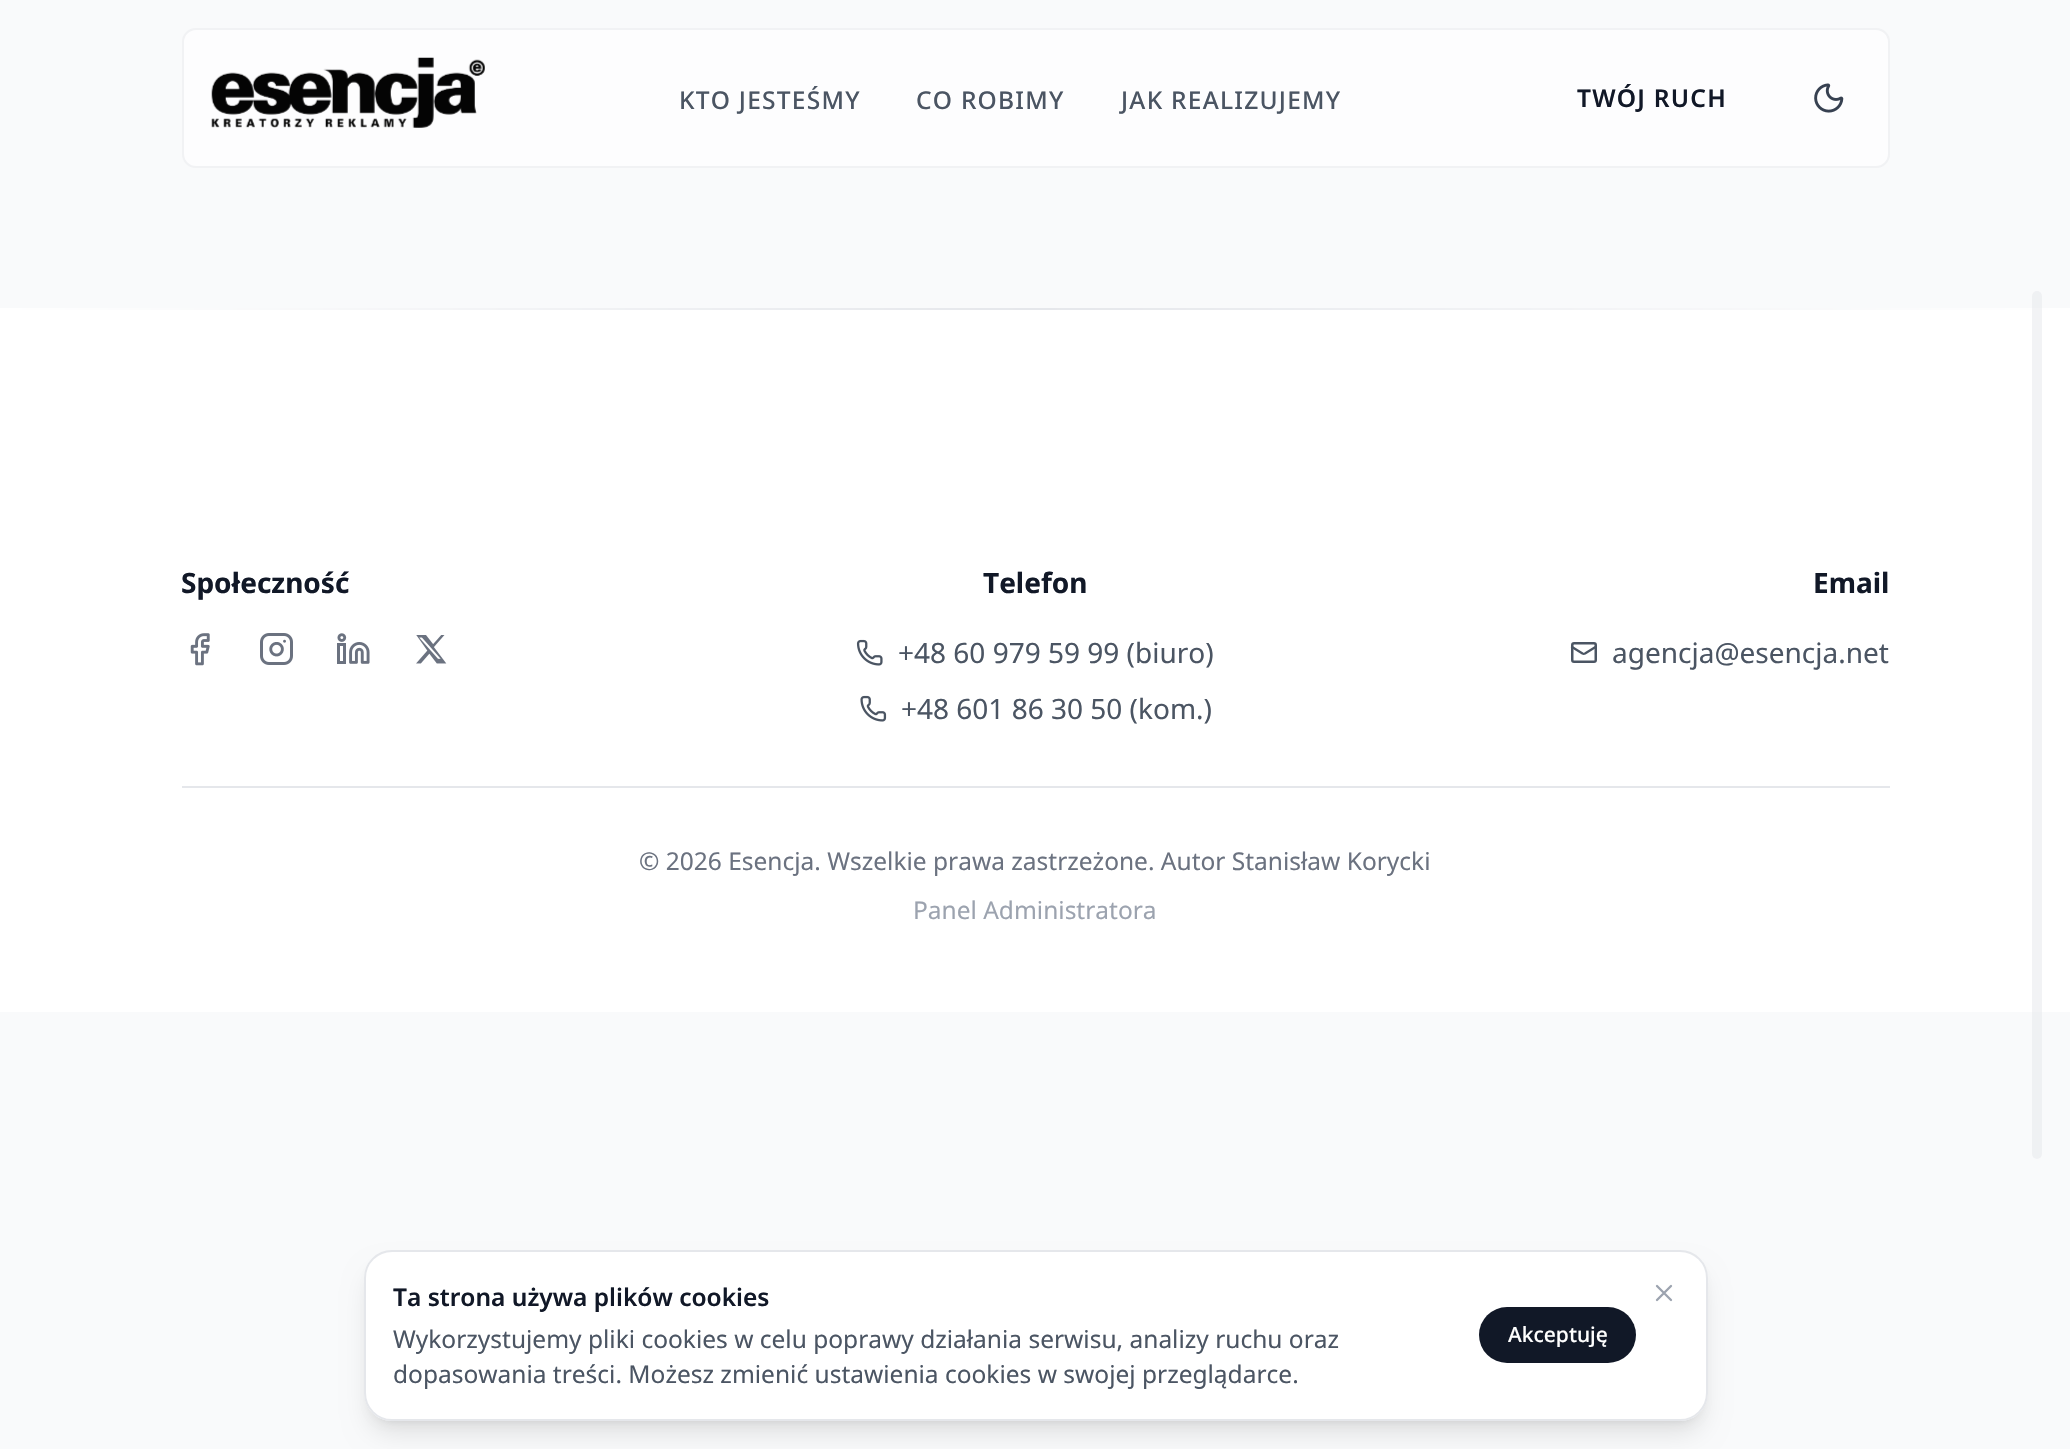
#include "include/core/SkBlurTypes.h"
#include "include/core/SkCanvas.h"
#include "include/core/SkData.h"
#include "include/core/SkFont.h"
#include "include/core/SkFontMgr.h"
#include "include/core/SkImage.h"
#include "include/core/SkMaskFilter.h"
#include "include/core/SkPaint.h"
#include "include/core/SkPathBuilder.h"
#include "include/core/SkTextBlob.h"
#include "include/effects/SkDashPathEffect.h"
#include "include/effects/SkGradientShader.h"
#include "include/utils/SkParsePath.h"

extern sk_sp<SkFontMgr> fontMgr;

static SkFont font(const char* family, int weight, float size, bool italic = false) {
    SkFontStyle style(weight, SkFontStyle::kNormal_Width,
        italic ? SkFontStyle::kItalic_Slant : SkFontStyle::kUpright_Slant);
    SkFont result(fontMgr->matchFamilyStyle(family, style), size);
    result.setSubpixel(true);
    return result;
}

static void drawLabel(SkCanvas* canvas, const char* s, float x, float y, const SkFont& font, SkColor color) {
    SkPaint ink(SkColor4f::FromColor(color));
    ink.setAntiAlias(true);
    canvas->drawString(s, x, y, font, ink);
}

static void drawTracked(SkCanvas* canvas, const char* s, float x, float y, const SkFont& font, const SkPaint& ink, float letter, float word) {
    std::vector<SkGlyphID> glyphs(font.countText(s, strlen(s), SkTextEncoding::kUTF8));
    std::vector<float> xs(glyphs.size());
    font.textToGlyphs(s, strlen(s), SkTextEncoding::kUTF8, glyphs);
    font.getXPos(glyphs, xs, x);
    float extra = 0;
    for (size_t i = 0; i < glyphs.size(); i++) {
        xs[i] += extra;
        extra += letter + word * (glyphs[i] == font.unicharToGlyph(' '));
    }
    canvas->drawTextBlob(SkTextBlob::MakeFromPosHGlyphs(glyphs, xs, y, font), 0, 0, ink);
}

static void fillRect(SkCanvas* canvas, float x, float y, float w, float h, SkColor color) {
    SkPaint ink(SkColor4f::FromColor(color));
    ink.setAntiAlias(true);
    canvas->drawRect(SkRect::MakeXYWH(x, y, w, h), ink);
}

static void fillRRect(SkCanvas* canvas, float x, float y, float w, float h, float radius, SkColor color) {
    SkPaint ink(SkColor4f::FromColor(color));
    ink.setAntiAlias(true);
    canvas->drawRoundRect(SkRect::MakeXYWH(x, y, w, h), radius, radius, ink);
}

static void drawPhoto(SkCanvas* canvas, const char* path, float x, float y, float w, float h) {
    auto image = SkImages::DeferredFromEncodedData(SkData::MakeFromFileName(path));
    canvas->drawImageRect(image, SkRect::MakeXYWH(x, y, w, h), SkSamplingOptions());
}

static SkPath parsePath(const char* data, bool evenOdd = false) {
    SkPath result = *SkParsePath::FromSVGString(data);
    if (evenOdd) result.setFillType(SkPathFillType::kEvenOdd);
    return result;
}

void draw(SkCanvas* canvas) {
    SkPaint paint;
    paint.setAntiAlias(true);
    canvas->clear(0xFFF9FAFB);
    paint.setColor(0xFFFDFDFE);
    canvas->drawRoundRect(SkRect::MakeXYWH(183, 29, 1706, 138), 13, 13, paint);
    paint.setStroke(true);
    paint.setStrokeWidth(2);
    paint.setColor(0xFFF1F2F4);
    canvas->drawRoundRect(SkRect::MakeXYWH(183, 29, 1706, 138), 13, 13, paint);
    drawPhoto(canvas, "assets/img1.png", 211, 57, 274, 71);
    SkFont font1 = font("Noto Sans", 500, 24.5f);
    paint.setStroke(false);
    paint.setColor(0xFF4B5563);
    drawTracked(canvas, "KTO JESTEŚMY", 679, 109, font1, paint, 1.25f, 0);
    drawTracked(canvas, "CO ROBIMY", 916, 109, font1, paint, 1.25f, 0);
    drawTracked(canvas, "JAK REALIZUJEMY", 1121, 109, font1, paint, 1.25f, 0);
    SkFont font2 = font("Noto Sans", 600, 24.5f);
    paint.setColor(0xFF111827);
    drawTracked(canvas, "TWÓJ RUCH", 1577, 107, font2, paint, 1.25f, 0);
    drawPhoto(canvas, "assets/img2.png", 1814, 83, 30, 30);
    fillRect(canvas, 0, 310, 2070, 702, 0xFFFFFFFF);
    {
        const SkColor colors[] = {0xFFFFFFFF, 0xFFE5E7EB, 0xFFFFFFFF};
        const float stops[] = {0, 0.5f, 1};
        const SkPoint ends[] = {{0, 309}, {2070, 309}};
        paint.setShader(SkGradientShader::MakeLinear(ends, colors, stops, 3, SkTileMode::kClamp));
        paint.setAlpha(255);
    }
    canvas->drawRect(SkRect::MakeXYWH(0, 308, 2070, 2), paint);
    SkFont font3 = font("Noto Sans", 700, 28);
    drawLabel(canvas, "Społeczność", 181, 593, font3, 0xFF111827);
    drawPhoto(canvas, "assets/img3.png", 190, 633, 20, 33);
    drawPhoto(canvas, "assets/img4.png", 260, 633, 33, 32);
    drawPhoto(canvas, "assets/img5.png", 337, 633, 33, 31);
    drawPhoto(canvas, "assets/img6.png", 416, 635, 31, 29);
    drawLabel(canvas, "Telefon", 983, 593, font3, 0xFF111827);
    drawPhoto(canvas, "assets/img7.png", 856, 639, 27, 27);
    SkFont font4 = font("Noto Sans", 400, 28);
    drawLabel(canvas, "+48 60 979 59 99 (biuro)", 898, 663, font4, 0xFF4B5563);
    drawPhoto(canvas, "assets/img8.png", 860, 695, 27, 27);
    drawLabel(canvas, "+48 601 86 30 50 (kom.)", 901, 719, font4, 0xFF4B5563);
    drawLabel(canvas, "Email", 1813, 593, font3, 0xFF111827);
    paint.setStroke(true);
    paint.setStrokeWidth(2.3f);
    paint.setStrokeCap(SkPaint::kRound_Cap);
    paint.setStrokeJoin(SkPaint::kRound_Join);
    paint.setShader(nullptr);
    paint.setColor(0xFF4B5563);
    canvas->drawPath(parsePath("M1595.5 647L1585 653.5C1584 654 1583.5 654 1582.5 653.5L1572 647"), paint);
    paint.setStrokeWidth(2.5f);
    paint.setStrokeCap(SkPaint::kButt_Cap);
    paint.setStrokeJoin(SkPaint::kMiter_Join);
    canvas->drawRoundRect(SkRect::MakeXYWH(1572.25f, 643.25f, 23.5f, 18.5f), 1.75f, 1.75f, paint);
    drawLabel(canvas, "agencja@esencja.net", 1612, 663, font4, 0xFF4B5563);
    fillRect(canvas, 182, 786, 1708, 2, 0xFFE5E7EB);
    SkFont font5 = font("Noto Sans", 400, 24.5f);
    drawLabel(canvas, "© 2026 Esencja. Wszelkie prawa zastrzeżone. Autor Stanisław Korycki", 639, 870, font5, 0xFF6B7280);
    drawLabel(canvas, "Panel Administratora", 913, 919, font5, 0xFF9CA3AF);
    fillRRect(canvas, 2032, 291, 10, 868, 5, 0x80E5E7EB);
    canvas->save();
    canvas->clipPath(parsePath("M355 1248H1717V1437H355ZM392 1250H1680C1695.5 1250 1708 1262.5 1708 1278V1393C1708 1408.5 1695.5 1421 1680 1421H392C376.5 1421 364 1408.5 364 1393V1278C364 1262.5 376.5 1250 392 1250Z", true), true);
    paint.setStroke(false);
    paint.setColor(0x1A000000);
    paint.setMaskFilter(SkMaskFilter::MakeBlur(kNormal_SkBlurStyle, 5));
    canvas->drawRoundRect(SkRect::MakeXYWH(371, 1264, 1330, 157), 21, 21, paint);
    paint.setMaskFilter(nullptr);
    canvas->restore();
    canvas->save();
    canvas->clipPath(parsePath("M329 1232H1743V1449H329ZM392 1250H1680C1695.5 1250 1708 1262.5 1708 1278V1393C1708 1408.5 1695.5 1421 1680 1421H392C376.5 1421 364 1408.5 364 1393V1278C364 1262.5 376.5 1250 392 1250Z", true), true);
    paint.setMaskFilter(SkMaskFilter::MakeBlur(kNormal_SkBlurStyle, 13));
    canvas->drawRoundRect(SkRect::MakeXYWH(369, 1272, 1334, 161), 23, 23, paint);
    paint.setMaskFilter(nullptr);
    canvas->restore();
    paint.setColor(0xF2FFFFFF);
    canvas->drawRoundRect(SkRect::MakeXYWH(365, 1251, 1342, 169), 27, 27, paint);
    paint.setStroke(true);
    paint.setStrokeWidth(2);
    paint.setColor(0xFFE5E7EB);
    canvas->drawRoundRect(SkRect::MakeXYWH(365, 1251, 1342, 169), 27, 27, paint);
    drawLabel(canvas, "Ta strona używa plików cookies", 393, 1306, font2, 0xFF111827);
    drawLabel(canvas, "Wykorzystujemy pliki cookies w celu poprawy działania serwisu, analizy ruchu oraz", 393, 1348, font5, 0xFF4B5563);
    drawLabel(canvas, "dopasowania treści. Możesz zmienić ustawienia cookies w swojej przeglądarce.", 393, 1383, font5, 0xFF4B5563);
    fillRRect(canvas, 1479, 1307, 157, 56, 28, 0xFF111827);
    SkFont font6 = font("Noto Sans", 500, 21);
    drawLabel(canvas, "Akceptuję", 1508, 1342, font6, 0xFFFFFFFF);
    paint.setStrokeWidth(2.3f);
    paint.setStrokeCap(SkPaint::kRound_Cap);
    paint.setStrokeJoin(SkPaint::kRound_Join);
    paint.setColor(0xFF9CA3AF);
    canvas->drawPath(parsePath("M1671 1286L1657 1300M1657 1286L1671 1300"), paint);
}
